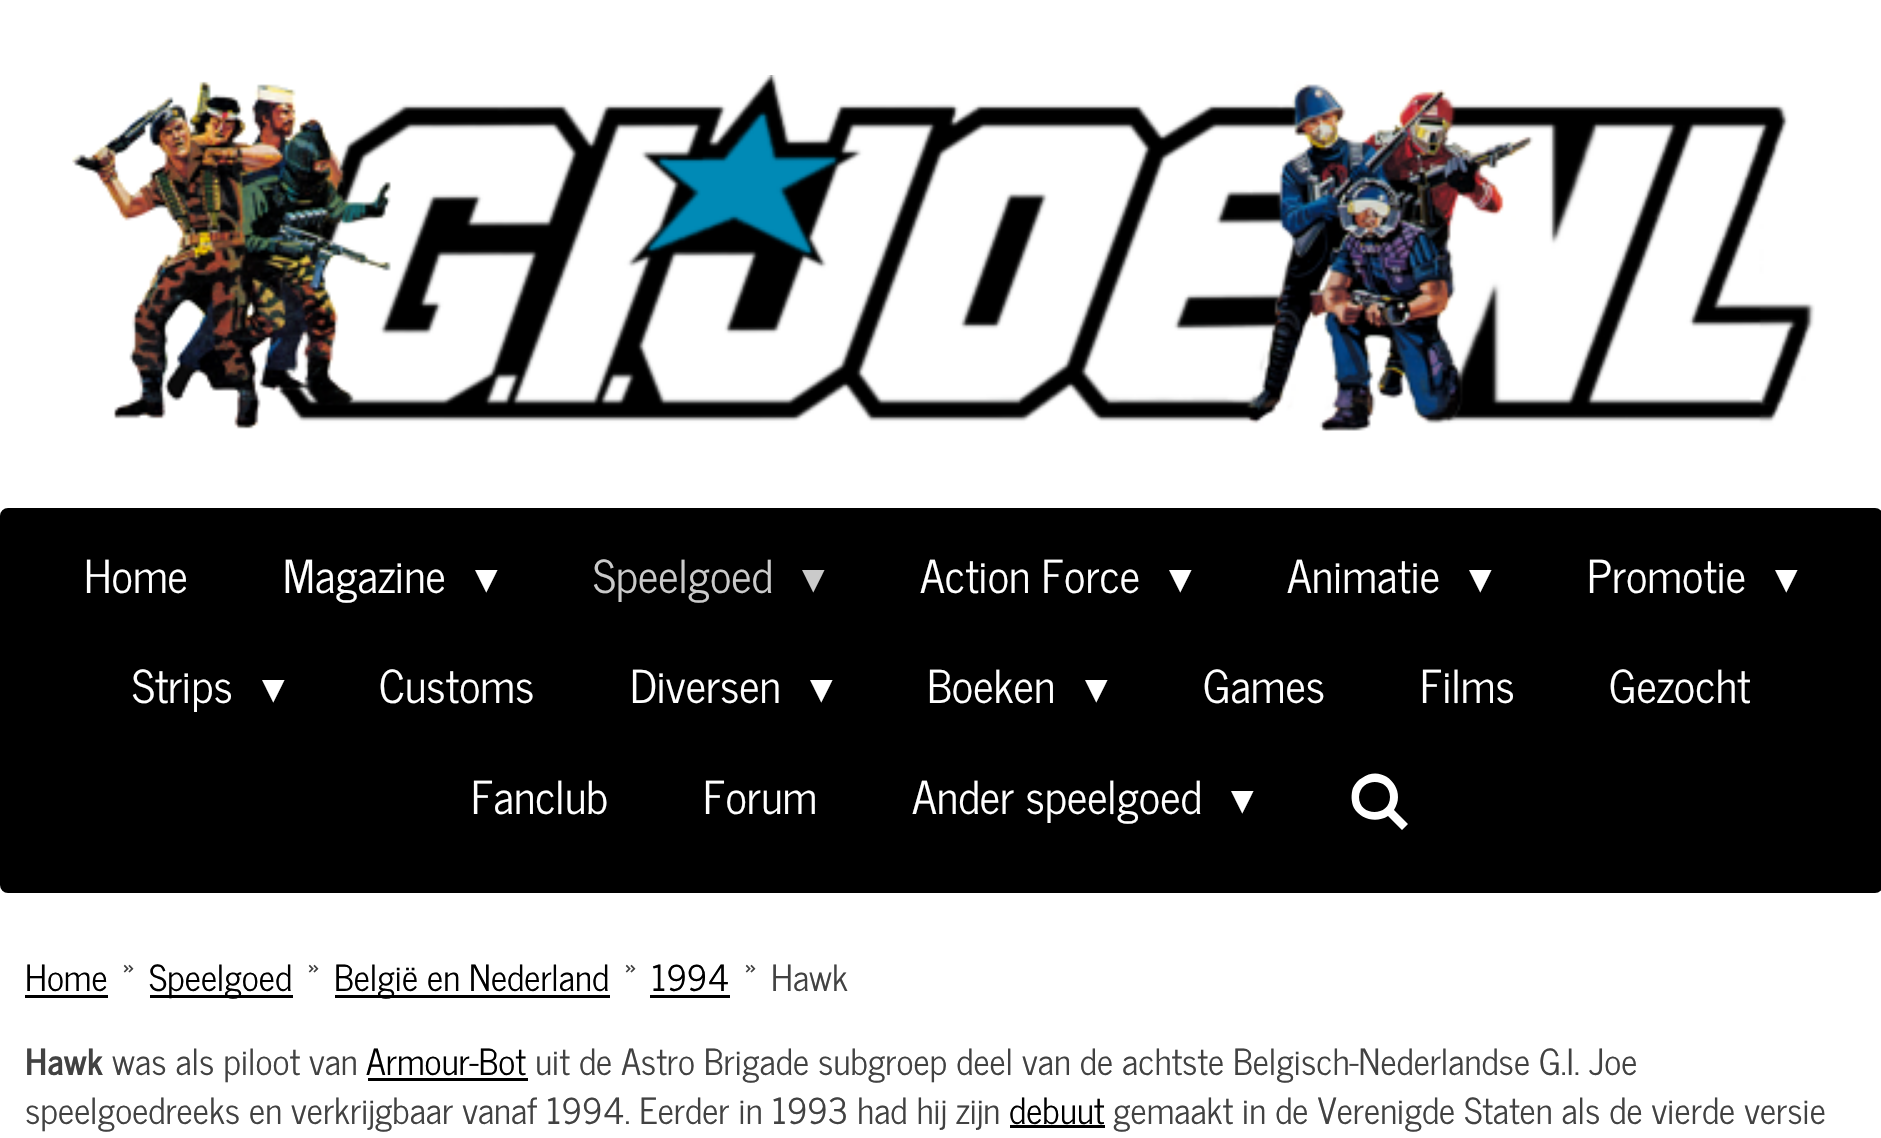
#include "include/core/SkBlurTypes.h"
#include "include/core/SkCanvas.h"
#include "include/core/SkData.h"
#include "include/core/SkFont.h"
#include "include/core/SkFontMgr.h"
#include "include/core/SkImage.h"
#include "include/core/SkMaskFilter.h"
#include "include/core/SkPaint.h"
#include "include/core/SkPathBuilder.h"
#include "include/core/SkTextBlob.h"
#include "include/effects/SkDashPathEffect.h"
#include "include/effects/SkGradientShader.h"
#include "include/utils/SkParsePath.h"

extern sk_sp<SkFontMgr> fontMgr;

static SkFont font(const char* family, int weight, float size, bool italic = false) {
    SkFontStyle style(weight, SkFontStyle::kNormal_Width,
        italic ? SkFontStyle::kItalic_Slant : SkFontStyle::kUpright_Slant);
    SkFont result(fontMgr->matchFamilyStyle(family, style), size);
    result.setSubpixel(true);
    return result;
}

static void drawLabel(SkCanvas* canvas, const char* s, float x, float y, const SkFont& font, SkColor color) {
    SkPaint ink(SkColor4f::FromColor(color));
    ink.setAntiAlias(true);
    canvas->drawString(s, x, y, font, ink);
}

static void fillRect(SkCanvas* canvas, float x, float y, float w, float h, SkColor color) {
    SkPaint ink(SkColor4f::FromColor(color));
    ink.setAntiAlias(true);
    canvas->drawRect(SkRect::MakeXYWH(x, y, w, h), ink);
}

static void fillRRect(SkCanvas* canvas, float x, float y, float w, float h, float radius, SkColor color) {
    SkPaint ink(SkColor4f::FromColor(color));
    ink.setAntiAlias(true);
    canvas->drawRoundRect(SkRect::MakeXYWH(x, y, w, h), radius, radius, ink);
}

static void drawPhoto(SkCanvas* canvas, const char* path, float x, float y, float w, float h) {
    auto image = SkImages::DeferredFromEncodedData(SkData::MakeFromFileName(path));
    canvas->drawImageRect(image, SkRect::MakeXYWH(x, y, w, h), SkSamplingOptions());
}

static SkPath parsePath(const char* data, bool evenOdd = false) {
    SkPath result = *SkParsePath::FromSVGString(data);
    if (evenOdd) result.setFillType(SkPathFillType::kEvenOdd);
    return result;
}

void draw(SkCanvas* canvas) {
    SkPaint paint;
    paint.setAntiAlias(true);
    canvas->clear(0xFFFFFFFF);
    drawPhoto(canvas, "assets/img1.png", 72, 75, 1743, 357);
    fillRRect(canvas, 0, 508, 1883, 385, 8, 0xFF000000);
    SkFont font1 = font("News Cycle", 400, 45);
    drawLabel(canvas, "Home", 84, 593, font1, 0xFFFFFFFF);
    drawLabel(canvas, "Magazine", 283, 593, font1, 0xFFFFFFFF);
    SkFont font2 = font("DejaVu Sans", 400, 45);
    drawLabel(canvas, "▾", 475, 593, font2, 0xFFFFFFFF);
    drawLabel(canvas, "Speelgoed", 593, 593, font1, 0xFFCACACA);
    drawLabel(canvas, "▾", 802, 593, font2, 0xFFCACACA);
    drawLabel(canvas, "Action Force", 920, 593, font1, 0xFFFFFFFF);
    drawLabel(canvas, "▾", 1169, 593, font2, 0xFFFFFFFF);
    drawLabel(canvas, "Animatie", 1287, 593, font1, 0xFFFFFFFF);
    drawLabel(canvas, "▾", 1469, 593, font2, 0xFFFFFFFF);
    drawLabel(canvas, "Promotie", 1587, 593, font1, 0xFFFFFFFF);
    drawLabel(canvas, "▾", 1775, 593, font2, 0xFFFFFFFF);
    drawLabel(canvas, "Strips", 132, 703, font1, 0xFFFFFFFF);
    drawLabel(canvas, "▾", 262, 703, font2, 0xFFFFFFFF);
    drawLabel(canvas, "Customs", 379, 703, font1, 0xFFFFFFFF);
    drawLabel(canvas, "Diversen", 630, 703, font1, 0xFFFFFFFF);
    drawLabel(canvas, "▾", 810, 703, font2, 0xFFFFFFFF);
    drawLabel(canvas, "Boeken", 927, 703, font1, 0xFFFFFFFF);
    drawLabel(canvas, "▾", 1085, 703, font2, 0xFFFFFFFF);
    drawLabel(canvas, "Games", 1203, 703, font1, 0xFFFFFFFF);
    drawLabel(canvas, "Films", 1420, 703, font1, 0xFFFFFFFF);
    drawLabel(canvas, "Gezocht", 1609, 703, font1, 0xFFFFFFFF);
    drawLabel(canvas, "Fanclub", 471, 814, font1, 0xFFFFFFFF);
    drawLabel(canvas, "Forum", 703, 814, font1, 0xFFFFFFFF);
    drawLabel(canvas, "Ander speelgoed", 912, 814, font1, 0xFFFFFFFF);
    drawLabel(canvas, "▾", 1231, 814, font2, 0xFFFFFFFF);
    paint.setColor(0xFFFFFFFF);
    canvas->drawPath(parsePath("M1394 810L1408 824L1402 830L1388 816C1377 823 1361 820 1354 808C1351 802 1351 794 1353 788C1355 784 1358 780 1362 778C1383 763 1408 789 1394 810ZM1390 797C1390 777 1360 777 1359 797C1359 817 1390 817 1390 797Z"), paint);
    SkFont font3 = font("News Cycle", 400, 35.75f);
    drawLabel(canvas, "Home", 25, 991, font3, 0xFF000000);
    fillRect(canvas, 25, 995, 83, 3, 0xFF000000);
    drawLabel(canvas, "»", 122, 991, font3, 0xFF424242);
    fillRect(canvas, 150, 995, 143, 3, 0xFF000000);
    drawLabel(canvas, "Speelgoed", 149, 991, font3, 0xFF000000);
    drawLabel(canvas, "»", 307, 991, font3, 0xFF424242);
    fillRect(canvas, 335, 995, 275, 3, 0xFF000000);
    drawLabel(canvas, "België en Nederland", 334, 991, font3, 0xFF000000);
    drawLabel(canvas, "»", 624, 991, font3, 0xFF424242);
    drawLabel(canvas, "1994", 651, 991, font3, 0xFF000000);
    fillRect(canvas, 650, 995, 80, 3, 0xFF000000);
    drawLabel(canvas, "»", 744, 991, font3, 0xFF424242);
    drawLabel(canvas, "Hawk", 771, 991, font3, 0xFF424242);
    SkFont font4 = font("News Cycle", 700, 35.75f);
    drawLabel(canvas, "Hawk", 25, 1075, font4, 0xFF424242);
    drawLabel(canvas, "was als piloot van", 112, 1075, font3, 0xFF424242);
    drawLabel(canvas, "Armour-Bot", 366, 1075, font3, 0xFF000000);
    fillRect(canvas, 368, 1078, 160, 3, 0xFF000000);
    drawLabel(canvas, "uit de Astro Brigade subgroep deel van de achtste Belgisch-Nederlandse G.I. Joe", 535, 1075, font3, 0xFF424242);
    drawLabel(canvas, "speelgoedreeks en verkrijgbaar vanaf 1994. Eerder in 1993 had hij zijn", 25, 1124, font3, 0xFF424242);
    drawLabel(canvas, "debuut", 1009, 1124, font3, 0xFF000000);
    fillRect(canvas, 1010, 1125, 95, 3, 0xFF000000);
    drawLabel(canvas, "gemaakt in de Verenigde Staten als de vierde versie", 1113, 1124, font3, 0xFF424242);
}
